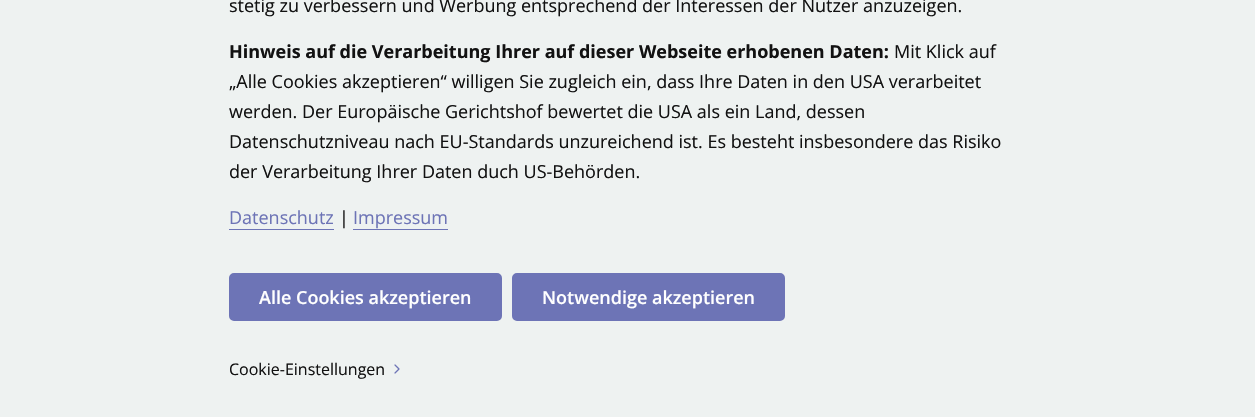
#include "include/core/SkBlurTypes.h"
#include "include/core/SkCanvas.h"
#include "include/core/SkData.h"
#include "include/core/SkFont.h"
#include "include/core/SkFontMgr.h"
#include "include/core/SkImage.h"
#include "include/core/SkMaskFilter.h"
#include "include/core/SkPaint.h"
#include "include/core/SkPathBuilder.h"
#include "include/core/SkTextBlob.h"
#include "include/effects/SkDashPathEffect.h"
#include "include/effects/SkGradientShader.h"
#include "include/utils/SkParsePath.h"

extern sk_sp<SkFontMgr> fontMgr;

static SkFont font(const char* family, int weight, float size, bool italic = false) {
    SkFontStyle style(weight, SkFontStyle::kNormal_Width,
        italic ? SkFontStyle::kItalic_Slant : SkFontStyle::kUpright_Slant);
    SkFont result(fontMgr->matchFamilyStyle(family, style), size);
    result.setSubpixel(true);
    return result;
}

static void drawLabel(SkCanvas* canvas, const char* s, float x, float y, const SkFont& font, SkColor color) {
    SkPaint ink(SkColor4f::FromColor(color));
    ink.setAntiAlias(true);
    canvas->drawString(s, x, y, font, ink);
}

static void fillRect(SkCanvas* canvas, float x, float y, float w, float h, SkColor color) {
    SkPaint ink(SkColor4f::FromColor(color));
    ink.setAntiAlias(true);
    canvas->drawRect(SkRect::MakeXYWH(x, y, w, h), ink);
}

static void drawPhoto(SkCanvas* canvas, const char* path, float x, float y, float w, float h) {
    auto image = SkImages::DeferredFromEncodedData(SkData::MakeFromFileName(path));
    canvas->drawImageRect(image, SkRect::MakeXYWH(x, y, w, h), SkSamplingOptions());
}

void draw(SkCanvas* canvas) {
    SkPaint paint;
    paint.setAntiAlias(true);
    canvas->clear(0xFFEEF2F1);
    SkFont font1 = font("Open Sans", 400, 18);
    drawLabel(canvas, "stetig zu verbessern und Werbung entsprechend der Interessen der Nutzer anzuzeigen.", 229, 12, font1, 0xFF121212);
    SkFont font2 = font("Open Sans", 700, 18);
    drawLabel(canvas, "Hinweis auf die Verarbeitung Ihrer auf dieser Webseite erhobenen Daten:", 229, 58, font2, 0xFF121212);
    drawLabel(canvas, "Mit Klick auf", 894, 58, font1, 0xFF121212);
    drawLabel(canvas, "„Alle Cookies akzeptieren“ willigen Sie zugleich ein, dass Ihre Daten in den USA verarbeitet", 229, 88, font1, 0xFF121212);
    drawLabel(canvas, "werden. Der Europäische Gerichtshof bewertet die USA als ein Land, dessen", 229, 118, font1, 0xFF121212);
    drawLabel(canvas, "Datenschutzniveau nach EU-Standards unzureichend ist. Es besteht insbesondere das Risiko", 229, 148, font1, 0xFF121212);
    drawLabel(canvas, "der Verarbeitung Ihrer Daten duch US-Behörden.", 229, 178, font1, 0xFF121212);
    drawLabel(canvas, "Datenschutz", 229, 224, font1, 0xFF6D74B6);
    fillRect(canvas, 229, 229, 105, 1, 0xFF6D74B6);
    drawLabel(canvas, "|", 339, 224, font1, 0xFF121212);
    drawLabel(canvas, "Impressum", 353, 224, font1, 0xFF6D74B6);
    fillRect(canvas, 353, 229, 95, 1, 0xFF6D74B6);
    paint.setColor(0xFF6D74B6);
    canvas->drawRoundRect(SkRect::MakeXYWH(230, 274, 271, 46), 4, 4, paint);
    paint.setStroke(true);
    paint.setStrokeWidth(2);
    canvas->drawRoundRect(SkRect::MakeXYWH(230, 274, 271, 46), 4, 4, paint);
    SkFont font3 = font("Open Sans", 600, 18);
    drawLabel(canvas, "Alle Cookies akzeptieren", 259, 304, font3, 0xFFFFFFFF);
    paint.setStroke(false);
    canvas->drawRoundRect(SkRect::MakeXYWH(513, 274, 271, 46), 4, 4, paint);
    paint.setStroke(true);
    canvas->drawRoundRect(SkRect::MakeXYWH(513, 274, 271, 46), 4, 4, paint);
    drawLabel(canvas, "Notwendige akzeptieren", 542, 304, font3, 0xFFFFFFFF);
    SkFont font4 = font("Open Sans", 400, 16);
    drawLabel(canvas, "Cookie-Einstellungen", 229, 375, font4, 0xFF121212);
    drawPhoto(canvas, "assets/img1.png", 394, 364, 6, 10);
}
